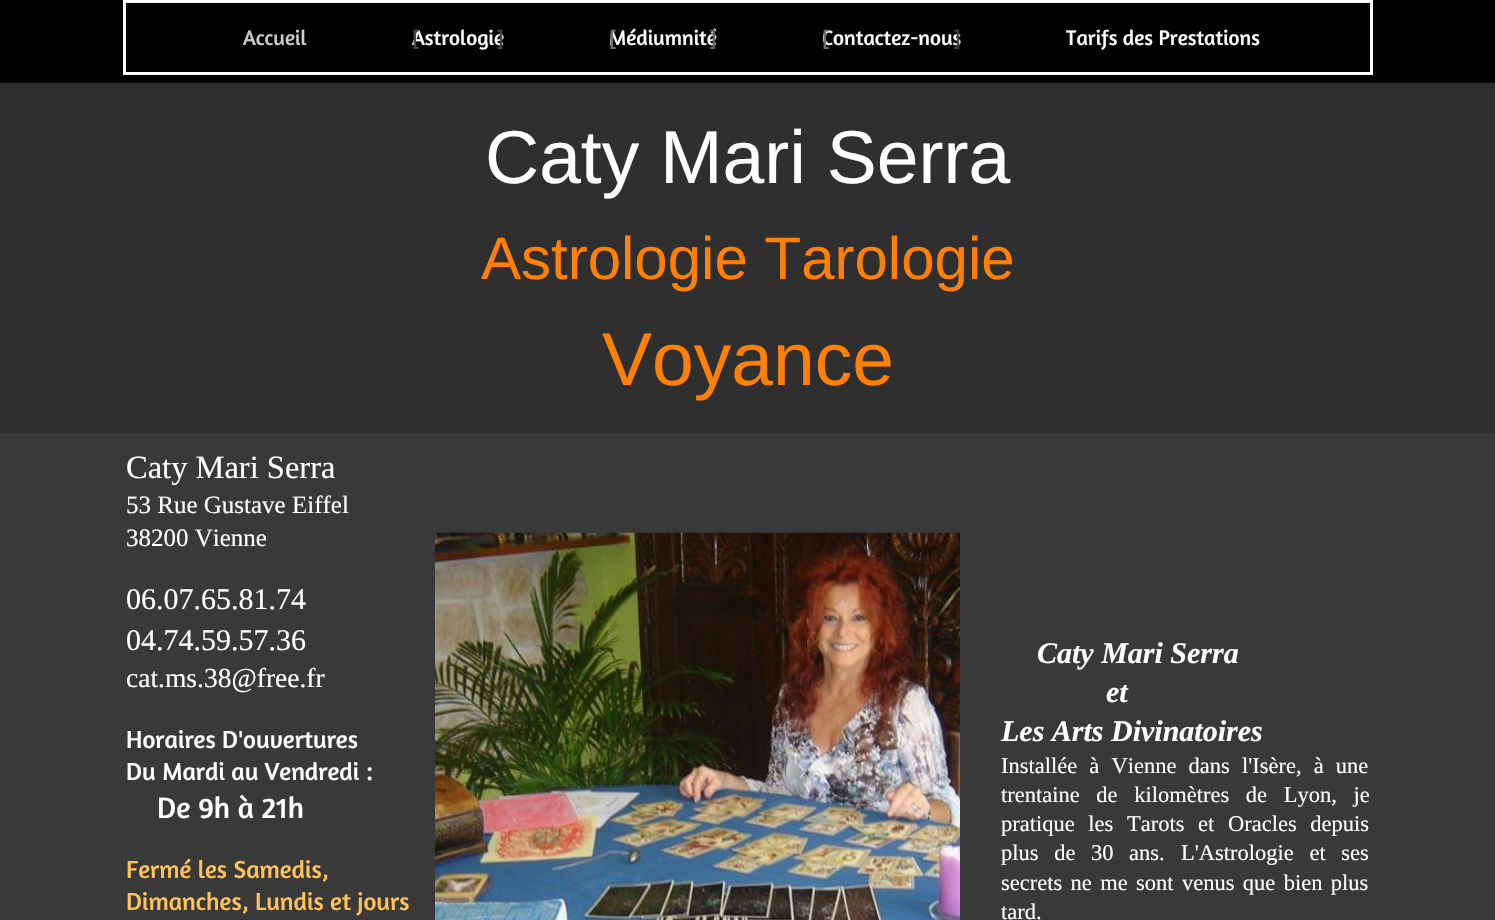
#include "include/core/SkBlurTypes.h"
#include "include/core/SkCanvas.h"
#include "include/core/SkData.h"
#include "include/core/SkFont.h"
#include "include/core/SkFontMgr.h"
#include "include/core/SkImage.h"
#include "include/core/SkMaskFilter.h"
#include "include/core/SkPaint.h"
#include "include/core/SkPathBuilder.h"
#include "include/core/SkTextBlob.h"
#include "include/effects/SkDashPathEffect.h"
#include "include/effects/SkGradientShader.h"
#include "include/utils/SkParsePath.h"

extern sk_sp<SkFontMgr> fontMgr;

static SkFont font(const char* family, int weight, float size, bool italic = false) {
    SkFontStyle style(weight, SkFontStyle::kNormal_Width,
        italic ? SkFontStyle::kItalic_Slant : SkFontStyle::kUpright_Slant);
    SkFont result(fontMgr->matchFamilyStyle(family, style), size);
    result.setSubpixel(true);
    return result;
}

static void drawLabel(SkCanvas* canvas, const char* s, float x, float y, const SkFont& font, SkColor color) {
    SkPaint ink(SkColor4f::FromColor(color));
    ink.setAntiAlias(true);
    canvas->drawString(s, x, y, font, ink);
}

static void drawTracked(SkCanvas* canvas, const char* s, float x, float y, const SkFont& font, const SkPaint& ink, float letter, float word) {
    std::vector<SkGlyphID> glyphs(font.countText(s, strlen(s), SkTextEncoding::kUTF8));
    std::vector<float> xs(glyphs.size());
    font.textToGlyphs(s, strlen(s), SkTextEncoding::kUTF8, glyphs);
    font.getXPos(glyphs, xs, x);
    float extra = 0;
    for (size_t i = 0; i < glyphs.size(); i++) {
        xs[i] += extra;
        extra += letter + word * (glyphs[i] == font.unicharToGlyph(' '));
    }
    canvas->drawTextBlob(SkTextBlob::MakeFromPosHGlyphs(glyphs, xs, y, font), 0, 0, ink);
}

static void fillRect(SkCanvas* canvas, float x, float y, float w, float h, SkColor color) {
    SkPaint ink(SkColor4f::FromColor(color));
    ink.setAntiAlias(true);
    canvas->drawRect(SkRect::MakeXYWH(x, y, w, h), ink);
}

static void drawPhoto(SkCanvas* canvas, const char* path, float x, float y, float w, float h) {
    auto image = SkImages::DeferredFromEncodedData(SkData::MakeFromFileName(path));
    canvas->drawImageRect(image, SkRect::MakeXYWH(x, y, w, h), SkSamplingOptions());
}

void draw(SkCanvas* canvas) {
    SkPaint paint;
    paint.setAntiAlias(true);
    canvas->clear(0xFF393939);
    fillRect(canvas, 0, 0, 1495, 83, 0xFF000000);
    paint.setStroke(true);
    paint.setStrokeWidth(3);
    paint.setColor(0xFFFFFFFF);
    canvas->drawRect(SkRect::MakeXYWH(124.5f, 1.5f, 1247, 72), paint);
    SkFont font1 = font("Amaranth", 400, 21.25f);
    drawLabel(canvas, "Accueil", 243, 45, font1, 0xFFCDCDCD);
    drawLabel(canvas, "Astrologie", 412, 45, font1, 0xFFFFFFFF);
    drawLabel(canvas, "[", 412, 45, font1, 0xFF474747);
    drawLabel(canvas, "]", 496, 45, font1, 0xFF474747);
    drawLabel(canvas, "Médiumnité", 609, 45, font1, 0xFFFFFFFF);
    drawLabel(canvas, "[", 609, 45, font1, 0xFF707070);
    drawLabel(canvas, "]", 709, 45, font1, 0xFF636363);
    drawLabel(canvas, "Contactez-nous", 822, 45, font1, 0xFFFFFFFF);
    drawLabel(canvas, "[", 822, 45, font1, 0xFF707070);
    drawLabel(canvas, "]", 953, 45, font1, 0xFF414141);
    drawLabel(canvas, "Tarifs des Prestations", 1066, 45, font1, 0xFFFFFFFF);
    fillRect(canvas, 0, 83, 1495, 350, 0xFF2F2F2F);
    SkFont font2 = font("Liberation Sans", 400, 75);
    drawLabel(canvas, "Caty Mari Serra", 485, 183, font2, 0xFFFFFFFF);
    SkFont font3 = font("Liberation Sans", 400, 60);
    drawLabel(canvas, "Astrologie Tarologie", 481, 279, font3, 0xFFFF8004);
    drawLabel(canvas, "Voyance", 602, 385, font2, 0xFFFF8004);
    SkFont font4 = font("Liberation Serif", 400, 32.5f);
    drawLabel(canvas, "Caty Mari Serra", 126, 478, font4, 0xFFFFFFFF);
    SkFont font5 = font("Liberation Serif", 400, 25);
    drawLabel(canvas, "53 Rue Gustave Eiffel", 126, 513, font5, 0xFFFFFFFF);
    drawLabel(canvas, "38200 Vienne", 126, 546, font5, 0xFFFFFFFF);
    SkFont font6 = font("Liberation Serif", 400, 30);
    drawLabel(canvas, "06.07.65.81.74", 126, 609, font6, 0xFFFFFFFF);
    drawLabel(canvas, "04.74.59.57.36", 126, 650, font6, 0xFFFFFFFF);
    SkFont font7 = font("Liberation Serif", 400, 27.5f);
    drawLabel(canvas, "cat.ms.38@free.fr", 126, 687, font7, 0xFFFFFFFF);
    SkFont font8 = font("Amaranth", 400, 25);
    drawLabel(canvas, "Horaires D'ouvertures", 126, 748, font8, 0xFFFFFFFF);
    drawLabel(canvas, "Du Mardi au Vendredi :", 126, 780, font8, 0xFFFFFFFF);
    SkFont font9 = font("Amaranth", 400, 30);
    drawLabel(canvas, "De 9h à 21h", 157, 818, font9, 0xFFFFFFFF);
    drawLabel(canvas, "Fermé les Samedis,", 126, 878, font8, 0xFFFFC258);
    drawLabel(canvas, "Dimanches, Lundis et jours", 126, 910, font8, 0xFFFFC258);
    drawPhoto(canvas, "assets/img1.png", 435, 532, 525, 388);
    SkFont font10 = font("Liberation Serif", 700, 30, true);
    drawLabel(canvas, "Caty Mari Serra", 1037, 663, font10, 0xFFFFFFFF);
    drawLabel(canvas, "et", 1106, 702, font10, 0xFFFFFFFF);
    drawLabel(canvas, "Les Arts Divinatoires", 1001, 741, font10, 0xFFFFFFFF);
    SkFont font11 = font("Liberation Serif", 400, 22.5f);
    paint.setStroke(false);
    drawTracked(canvas, "Installée à Vienne dans l'Isère, à une", 1001, 773, font11, paint, 0, 6.5f);
    drawTracked(canvas, "trentaine de kilomètres de Lyon, je", 1001, 802, font11, paint, 0, 11);
    drawTracked(canvas, "pratique les Tarots et Oracles depuis", 1001, 831, font11, paint, 0, 8);
    drawTracked(canvas, "plus de 30 ans.", 1001, 860, font11, paint, 0, 10);
    drawTracked(canvas, "L'Astrologie et ses", 1181, 860, font11, paint, 0, 10);
    drawTracked(canvas, "secrets ne me sont venus que bien plus", 1001, 890, font11, paint, 0, 2.75f);
    drawLabel(canvas, "tard.", 1001, 919, font11, 0xFFFFFFFF);
}
